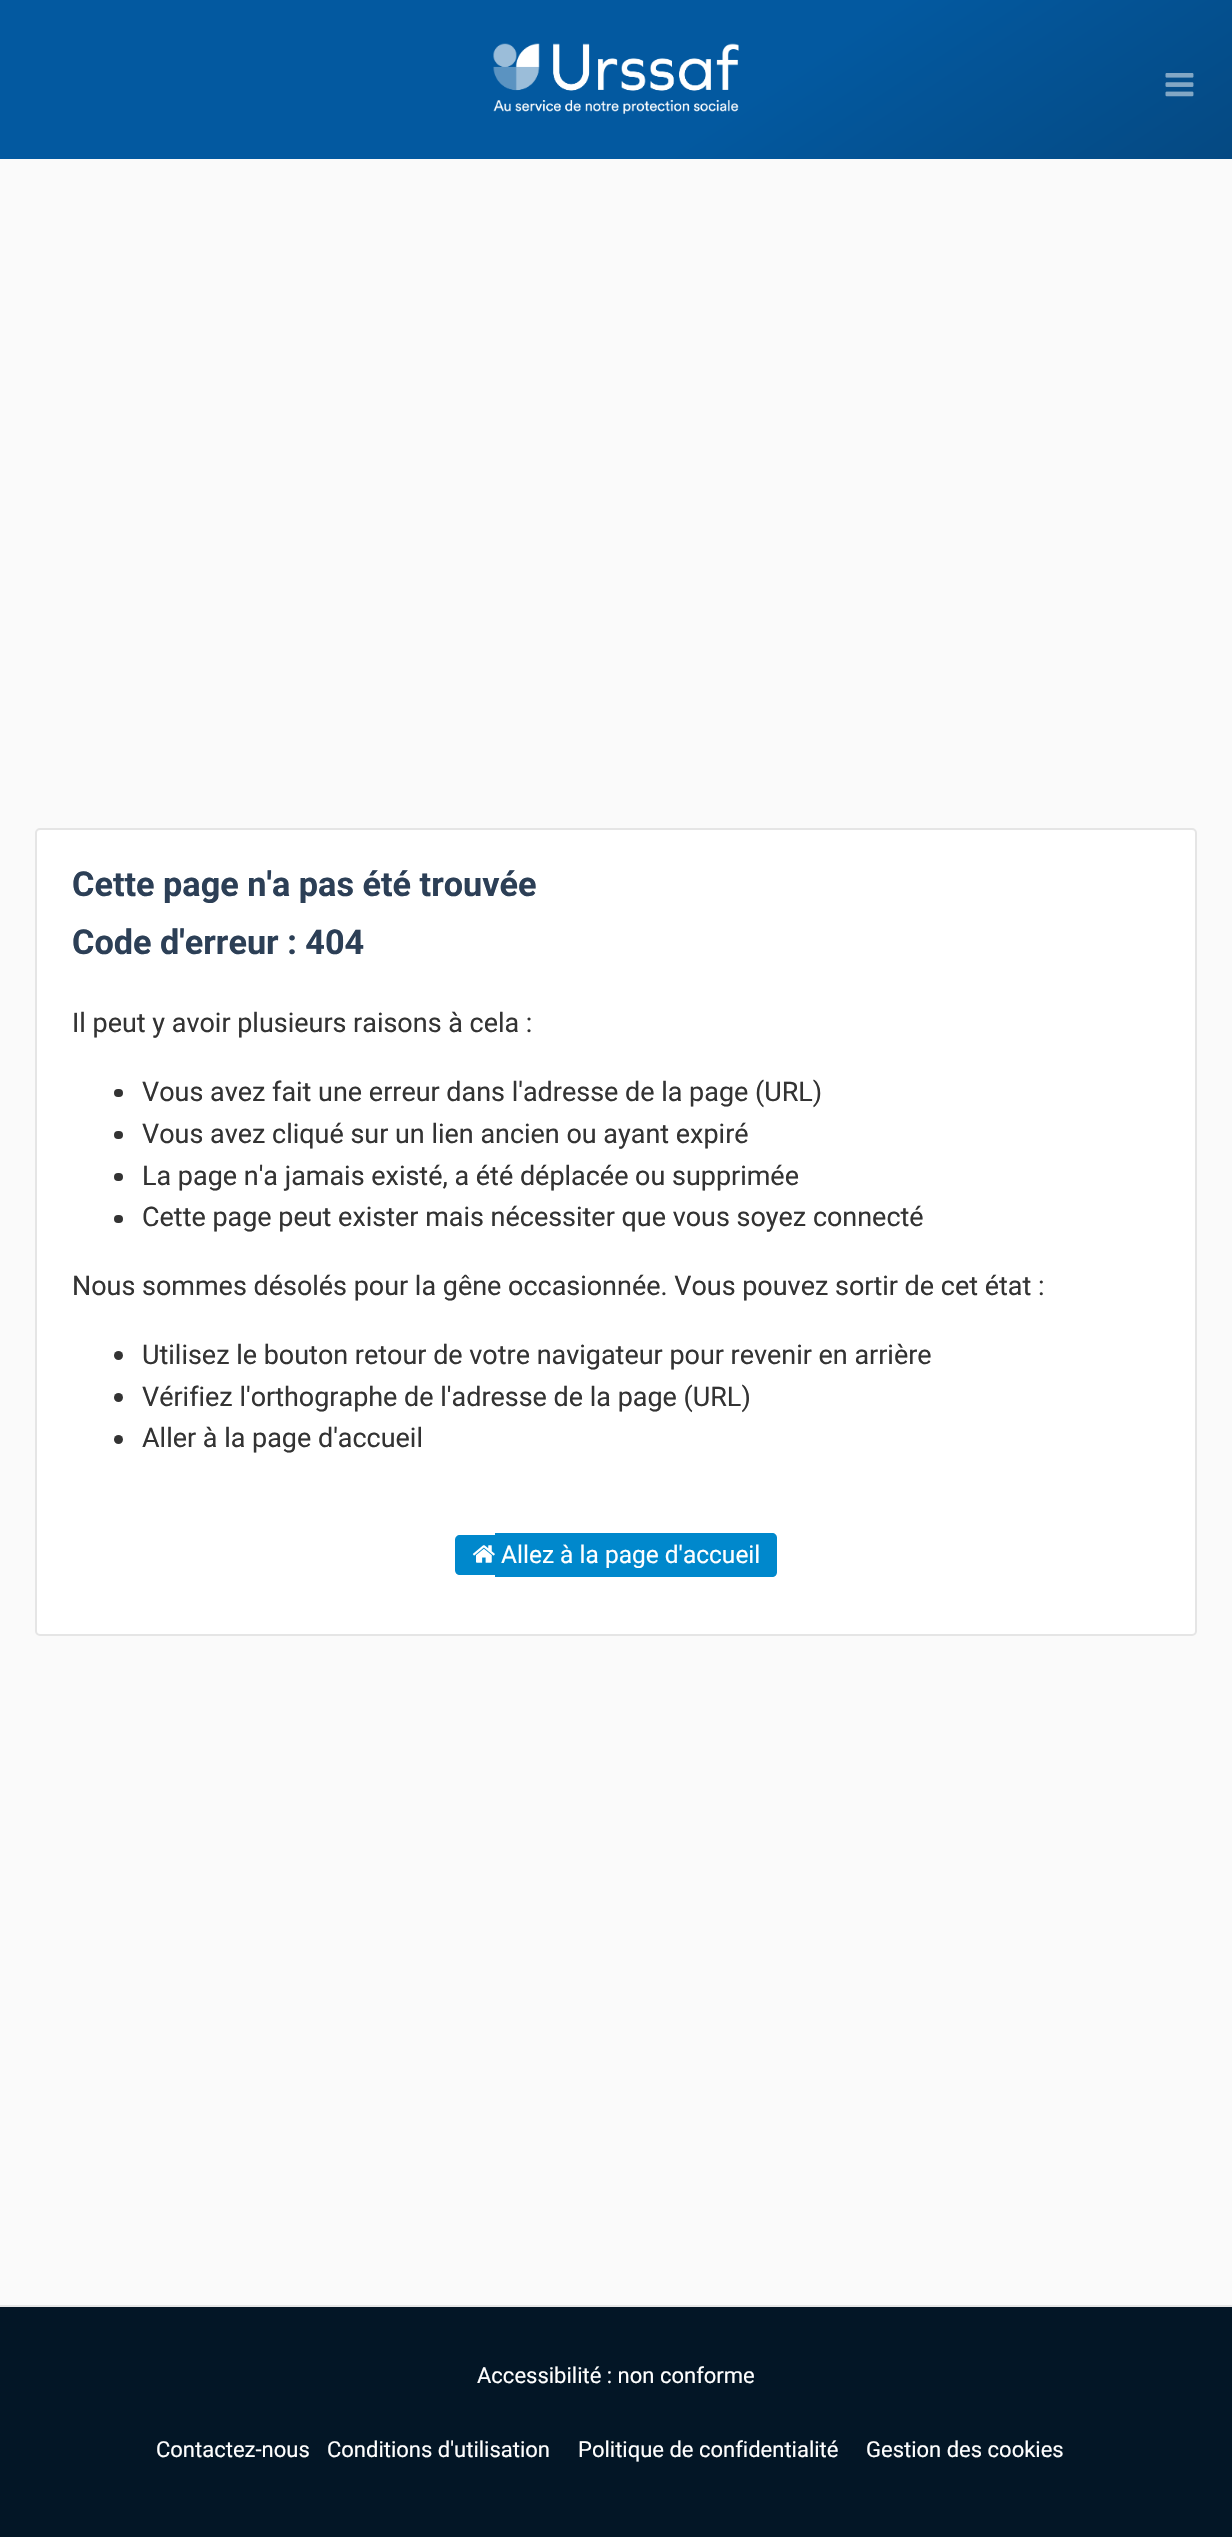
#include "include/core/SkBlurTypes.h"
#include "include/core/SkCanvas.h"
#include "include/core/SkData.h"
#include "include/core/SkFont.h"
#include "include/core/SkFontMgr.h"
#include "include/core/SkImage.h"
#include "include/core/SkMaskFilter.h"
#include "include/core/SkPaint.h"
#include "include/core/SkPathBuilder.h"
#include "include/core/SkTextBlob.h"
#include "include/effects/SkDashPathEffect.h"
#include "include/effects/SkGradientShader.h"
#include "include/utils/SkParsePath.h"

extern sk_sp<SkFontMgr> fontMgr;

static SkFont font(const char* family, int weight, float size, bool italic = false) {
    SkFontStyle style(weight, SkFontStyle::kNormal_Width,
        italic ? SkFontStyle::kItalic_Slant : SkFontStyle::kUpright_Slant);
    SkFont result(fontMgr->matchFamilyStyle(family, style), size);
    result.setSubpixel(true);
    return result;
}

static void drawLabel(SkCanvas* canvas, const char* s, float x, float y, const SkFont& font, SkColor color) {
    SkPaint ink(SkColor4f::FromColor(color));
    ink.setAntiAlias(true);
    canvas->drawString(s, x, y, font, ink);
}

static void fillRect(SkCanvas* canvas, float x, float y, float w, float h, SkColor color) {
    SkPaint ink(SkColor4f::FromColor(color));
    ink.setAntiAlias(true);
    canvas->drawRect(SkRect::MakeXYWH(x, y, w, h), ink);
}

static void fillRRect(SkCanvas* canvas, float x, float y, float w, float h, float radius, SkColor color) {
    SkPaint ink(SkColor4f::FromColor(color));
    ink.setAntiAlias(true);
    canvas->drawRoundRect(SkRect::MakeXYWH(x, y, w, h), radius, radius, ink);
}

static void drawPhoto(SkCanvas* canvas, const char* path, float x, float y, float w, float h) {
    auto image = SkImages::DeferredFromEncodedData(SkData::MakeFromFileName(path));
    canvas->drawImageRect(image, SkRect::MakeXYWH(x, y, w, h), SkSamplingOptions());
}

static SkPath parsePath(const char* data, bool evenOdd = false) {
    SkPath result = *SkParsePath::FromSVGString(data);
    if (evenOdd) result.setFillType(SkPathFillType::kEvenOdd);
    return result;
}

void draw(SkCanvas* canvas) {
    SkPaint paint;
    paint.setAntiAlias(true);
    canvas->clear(0xFFFAFAFA);
    {
        const SkColor colors[] = {0xFF0359A0, 0xFF054982};
        const float stops[] = {0.61f, 1};
        const SkPoint ends[] = {{397, -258}, {835, 417}};
        paint.setShader(SkGradientShader::MakeLinear(ends, colors, stops, 2, SkTileMode::kClamp));
        paint.setAlpha(255);
    }
    canvas->drawRect(SkRect::MakeXYWH(0, 0, 1232, 159), paint);
    drawPhoto(canvas, "assets/img1.png", 493, 43, 246, 71);
    drawPhoto(canvas, "assets/img2.png", 1165, 73, 29, 24);
    paint.setShader(nullptr);
    paint.setColor(0xFFFFFFFF);
    canvas->drawRoundRect(SkRect::MakeXYWH(36, 829, 1160, 806), 4, 4, paint);
    paint.setStroke(true);
    paint.setStrokeWidth(2);
    paint.setColor(0xFFE5E5E5);
    canvas->drawRoundRect(SkRect::MakeXYWH(36, 829, 1160, 806), 4, 4, paint);
    SkFont font1 = font("Roboto", 700, 34.25f);
    drawLabel(canvas, "Cette page n'a pas été trouvée", 72, 896, font1, 0xFF2C3F56);
    drawLabel(canvas, "Code d'erreur : 404", 72, 954, font1, 0xFF2C3F56);
    SkFont font2 = font("Roboto", 400, 26.95f);
    drawLabel(canvas, "Il peut y avoir plusieurs raisons à cela :", 72, 1032, font2, 0xFF333333);
    fillRRect(canvas, 114, 1089, 9, 8, 4, 0xFF333333);
    drawLabel(canvas, "Vous avez fait une erreur dans l'adresse de la page (URL)", 142, 1101, font2, 0xFF333333);
    fillRRect(canvas, 114, 1131, 9, 8, 4, 0xFF333333);
    drawLabel(canvas, "Vous avez cliqué sur un lien ancien ou ayant expiré", 142, 1143, font2, 0xFF333333);
    fillRRect(canvas, 114, 1173, 9, 8, 4, 0xFF333333);
    drawLabel(canvas, "La page n'a jamais existé, a été déplacée ou supprimée", 142, 1185, font2, 0xFF333333);
    fillRRect(canvas, 114, 1215, 9, 8, 4, 0xFF333333);
    drawLabel(canvas, "Cette page peut exister mais nécessiter que vous soyez connecté", 142, 1226, font2, 0xFF333333);
    drawLabel(canvas, "Nous sommes désolés pour la gêne occasionnée. Vous pouvez sortir de cet état :", 72, 1295, font2, 0xFF333333);
    paint.setStroke(false);
    paint.setColor(0xFF333333);
    canvas->drawCircle(118.5f, 1355.5f, 4.5f, paint);
    drawLabel(canvas, "Utilisez le bouton retour de votre navigateur pour revenir en arrière", 142, 1364, font2, 0xFF333333);
    canvas->drawCircle(118.5f, 1397.5f, 4.5f, paint);
    drawLabel(canvas, "Vérifiez l'orthographe de l'adresse de la page (URL)", 142, 1406, font2, 0xFF333333);
    canvas->drawCircle(118.5f, 1439.5f, 4.5f, paint);
    drawLabel(canvas, "Aller à la page d'accueil", 142, 1447, font2, 0xFF333333);
    paint.setColor(0xFF0088CC);
    canvas->drawPath(parsePath("M460 1535H495V1575H460C457 1575 455 1573 455 1570V1540C455 1537 457 1535 460 1535Z"), paint);
    canvas->drawPath(parsePath("M495 1533H772C775 1533 777 1535 777 1538V1572C777 1575 775 1577 772 1577H495Z"), paint);
    drawPhoto(canvas, "assets/img3.png", 472, 1545, 23, 18);
    SkFont font3 = font("Roboto", 400, 24.5f);
    drawLabel(canvas, "Allez à la page d'accueil", 501, 1563, font3, 0xFFFFFFFF);
    fillRect(canvas, 0, 2307, 1232, 230, 0xFF031626);
    fillRect(canvas, 0, 2305, 1232, 2, 0xFFE6E6E6);
    SkFont font4 = font("Roboto", 400, 22);
    drawLabel(canvas, "Accessibilité : non conforme", 477, 2383, font4, 0xFFFFFFFF);
    drawLabel(canvas, "Contactez-nous", 156, 2457, font4, 0xFFFFFFFF);
    drawLabel(canvas, "Conditions d'utilisation", 327, 2457, font4, 0xFFFFFFFF);
    drawLabel(canvas, "Politique de confidentialité", 578, 2457, font4, 0xFFFFFFFF);
    drawLabel(canvas, "Gestion des cookies", 866, 2457, font4, 0xFFFFFFFF);
}
